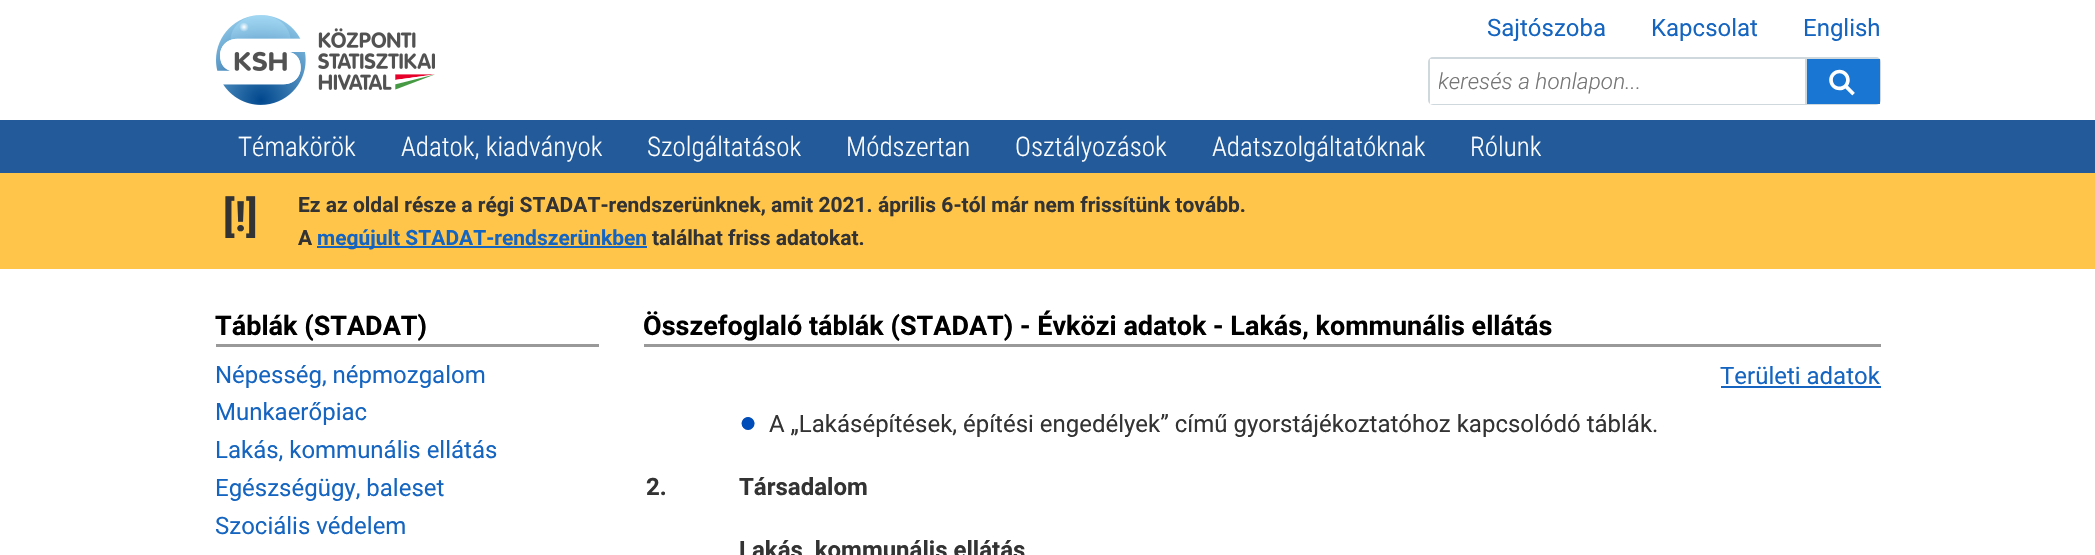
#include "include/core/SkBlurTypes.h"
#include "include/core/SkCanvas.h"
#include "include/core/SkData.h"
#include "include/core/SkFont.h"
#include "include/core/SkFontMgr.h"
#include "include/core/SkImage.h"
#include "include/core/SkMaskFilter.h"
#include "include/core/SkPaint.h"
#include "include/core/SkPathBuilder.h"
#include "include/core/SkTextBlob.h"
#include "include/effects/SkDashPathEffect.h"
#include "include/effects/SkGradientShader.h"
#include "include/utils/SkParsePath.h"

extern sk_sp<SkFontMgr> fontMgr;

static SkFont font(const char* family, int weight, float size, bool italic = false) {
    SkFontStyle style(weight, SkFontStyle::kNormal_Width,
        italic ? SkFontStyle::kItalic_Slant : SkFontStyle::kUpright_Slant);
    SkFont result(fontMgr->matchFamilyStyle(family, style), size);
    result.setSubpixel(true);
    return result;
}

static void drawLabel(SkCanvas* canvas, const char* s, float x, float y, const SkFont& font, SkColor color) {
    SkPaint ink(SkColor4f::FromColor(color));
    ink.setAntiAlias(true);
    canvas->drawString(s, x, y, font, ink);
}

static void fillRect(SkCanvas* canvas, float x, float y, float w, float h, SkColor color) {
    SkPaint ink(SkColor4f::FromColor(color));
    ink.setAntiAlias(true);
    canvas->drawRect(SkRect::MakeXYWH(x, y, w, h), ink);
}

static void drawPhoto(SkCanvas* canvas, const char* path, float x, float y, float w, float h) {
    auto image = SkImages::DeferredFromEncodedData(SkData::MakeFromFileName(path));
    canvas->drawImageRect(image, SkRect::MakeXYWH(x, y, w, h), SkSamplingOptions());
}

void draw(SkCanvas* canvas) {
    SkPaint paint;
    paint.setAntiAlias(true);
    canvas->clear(0xFFFFFFFF);
    drawPhoto(canvas, "assets/img1.png", 216, 15, 219, 90);
    SkFont font1 = font("Roboto", 400, 24);
    drawLabel(canvas, "Sajtószoba", 1487, 36, font1, 0xFF1565C0);
    drawLabel(canvas, "Kapcsolat", 1651, 36, font1, 0xFF1565C0);
    drawLabel(canvas, "English", 1803, 36, font1, 0xFF1565C0);
    paint.setStroke(true);
    paint.setStrokeWidth(2);
    paint.setColor(0xFFCFD8DC);
    canvas->drawRoundRect(SkRect::MakeXYWH(1429, 58, 451, 46), 4, 4, paint);
    fillRect(canvas, 1430, 59, 375, 45, 0xFFFFFFFF);
    canvas->save();
    canvas->clipRect(SkRect::MakeXYWH(1439, 68, 357, 27));
    SkFont font2 = font("Roboto", 300, 22.5f, true);
    drawLabel(canvas, "keresés a honlapon...", 1438, 89, font2, 0xFF757575);
    canvas->restore();
    fillRect(canvas, 1807, 59, 73, 45, 0xFF1976D2);
    fillRect(canvas, 1805, 59, 2, 45, 0xFFCFD8DC);
    drawPhoto(canvas, "assets/img2.png", 1829, 69, 26, 27);
    fillRect(canvas, 0, 120, 2095, 53, 0xFF225A9A);
    SkFont font3 = font("Roboto Condensed", 300, 27);
    drawLabel(canvas, "Témakörök", 238, 156, font3, 0xFFFFFFFF);
    drawLabel(canvas, "Adatok, kiadványok", 401, 156, font3, 0xFFFFFFFF);
    drawLabel(canvas, "Szolgáltatások", 647, 156, font3, 0xFFFFFFFF);
    drawLabel(canvas, "Módszertan", 846, 156, font3, 0xFFFFFFFF);
    drawLabel(canvas, "Osztályozások", 1015, 156, font3, 0xFFFFFFFF);
    drawLabel(canvas, "Adatszolgáltatóknak", 1212, 156, font3, 0xFFFFFFFF);
    drawLabel(canvas, "Rólunk", 1470, 156, font3, 0xFFFFFFFF);
    fillRect(canvas, 0, 173, 2095, 96, 0xFFFFC54B);
    SkFont font4 = font("Roboto", 700, 42);
    drawLabel(canvas, "[!]", 223, 231, font4, 0xFF333333);
    SkFont font5 = font("Roboto", 700, 21);
    drawLabel(canvas, "Ez az oldal része a régi STADAT-rendszerünknek, amit 2021. április 6-tól már nem frissítünk tovább.", 298, 212, font5, 0xFF333333);
    drawLabel(canvas, "A", 298, 245, font5, 0xFF333333);
    fillRect(canvas, 317, 246, 330, 2, 0xFF1565C0);
    drawLabel(canvas, "megújult STADAT-rendszerünkben", 317, 245, font5, 0xFF1565C0);
    drawLabel(canvas, "találhat friss adatokat.", 652, 245, font5, 0xFF333333);
    fillRect(canvas, 216, 344, 383, 3, 0xFF999999);
    SkFont font6 = font("Roboto", 700, 27);
    drawLabel(canvas, "Táblák (STADAT)", 215, 335, font6, 0xFF000000);
    drawLabel(canvas, "Népesség, népmozgalom", 215, 383, font1, 0xFF1565C0);
    drawLabel(canvas, "Munkaerőpiac", 215, 420, font1, 0xFF1565C0);
    drawLabel(canvas, "Lakás, kommunális ellátás", 215, 458, font1, 0xFF1565C0);
    drawLabel(canvas, "Egészségügy, baleset", 215, 496, font1, 0xFF1565C0);
    drawLabel(canvas, "Szociális védelem", 215, 534, font1, 0xFF1565C0);
    fillRect(canvas, 644, 344, 1237, 3, 0xFF999999);
    drawLabel(canvas, "Összefoglaló táblák (STADAT) - Évközi adatok - Lakás, kommunális ellátás", 643, 335, font6, 0xFF000000);
    drawLabel(canvas, "Területi adatok", 1720, 384, font1, 0xFF1565C0);
    fillRect(canvas, 1721, 386, 160, 2, 0xFF1565C0);
    SkFont font7 = font("Liberation Sans", 400, 30);
    drawLabel(canvas, "●", 739, 432, font7, 0xFF004CB8);
    drawLabel(canvas, "A „Lakásépítések, építési engedélyek” című gyorstájékoztatóhoz kapcsolódó táblák.", 769, 432, font1, 0xFF333333);
    SkFont font8 = font("Roboto", 700, 24);
    drawLabel(canvas, "2.", 646, 495, font8, 0xFF333333);
    drawLabel(canvas, "Társadalom", 739, 495, font8, 0xFF333333);
    drawLabel(canvas, "Lakás, kommunális ellátás", 739, 558, font8, 0xFF333333);
}
